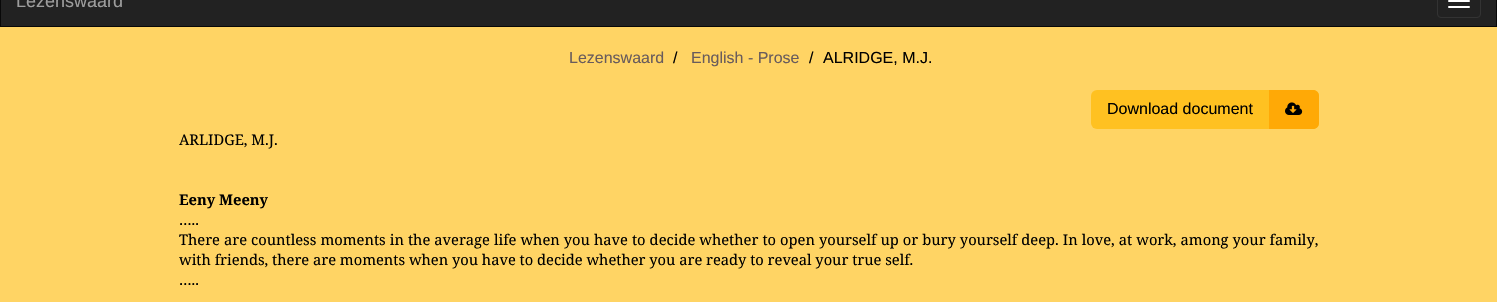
#include "include/core/SkBlurTypes.h"
#include "include/core/SkCanvas.h"
#include "include/core/SkData.h"
#include "include/core/SkFont.h"
#include "include/core/SkFontMgr.h"
#include "include/core/SkImage.h"
#include "include/core/SkMaskFilter.h"
#include "include/core/SkPaint.h"
#include "include/core/SkPathBuilder.h"
#include "include/core/SkTextBlob.h"
#include "include/effects/SkDashPathEffect.h"
#include "include/effects/SkGradientShader.h"
#include "include/utils/SkParsePath.h"

extern sk_sp<SkFontMgr> fontMgr;

static SkFont font(const char* family, int weight, float size, bool italic = false) {
    SkFontStyle style(weight, SkFontStyle::kNormal_Width,
        italic ? SkFontStyle::kItalic_Slant : SkFontStyle::kUpright_Slant);
    SkFont result(fontMgr->matchFamilyStyle(family, style), size);
    result.setSubpixel(true);
    return result;
}

static void drawLabel(SkCanvas* canvas, const char* s, float x, float y, const SkFont& font, SkColor color) {
    SkPaint ink(SkColor4f::FromColor(color));
    ink.setAntiAlias(true);
    canvas->drawString(s, x, y, font, ink);
}

static void drawTracked(SkCanvas* canvas, const char* s, float x, float y, const SkFont& font, const SkPaint& ink, float letter, float word) {
    std::vector<SkGlyphID> glyphs(font.countText(s, strlen(s), SkTextEncoding::kUTF8));
    std::vector<float> xs(glyphs.size());
    font.textToGlyphs(s, strlen(s), SkTextEncoding::kUTF8, glyphs);
    font.getXPos(glyphs, xs, x);
    float extra = 0;
    for (size_t i = 0; i < glyphs.size(); i++) {
        xs[i] += extra;
        extra += letter + word * (glyphs[i] == font.unicharToGlyph(' '));
    }
    canvas->drawTextBlob(SkTextBlob::MakeFromPosHGlyphs(glyphs, xs, y, font), 0, 0, ink);
}

static void fillRRect(SkCanvas* canvas, float x, float y, float w, float h, float radius, SkColor color) {
    SkPaint ink(SkColor4f::FromColor(color));
    ink.setAntiAlias(true);
    canvas->drawRoundRect(SkRect::MakeXYWH(x, y, w, h), radius, radius, ink);
}

static void drawPhoto(SkCanvas* canvas, const char* path, float x, float y, float w, float h) {
    auto image = SkImages::DeferredFromEncodedData(SkData::MakeFromFileName(path));
    canvas->drawImageRect(image, SkRect::MakeXYWH(x, y, w, h), SkSamplingOptions());
}

static SkPath parsePath(const char* data, bool evenOdd = false) {
    SkPath result = *SkParsePath::FromSVGString(data);
    if (evenOdd) result.setFillType(SkPathFillType::kEvenOdd);
    return result;
}

void draw(SkCanvas* canvas) {
    SkPaint paint;
    paint.setAntiAlias(true);
    canvas->clear(0xFFFFD464);
    paint.setColor(0xFF222222);
    canvas->drawRect(SkRect::MakeXYWH(0.5f, -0.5f, 1496, 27), paint);
    paint.setStroke(true);
    paint.setStrokeWidth(1);
    paint.setColor(0xFF080808);
    canvas->drawRect(SkRect::MakeXYWH(0.5f, -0.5f, 1496, 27), paint);
    SkFont font1 = font("Liberation Sans", 400, 18);
    drawLabel(canvas, "Lezenswaard", 16, 7, font1, 0xFF9D9D9D);
    paint.setColor(0xFF333333);
    canvas->drawRoundRect(SkRect::MakeXYWH(1437.5f, -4.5f, 43, 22), 3.5f, 3.5f, paint);
    fillRRect(canvas, 1448, 0, 22, 2, 1, 0xFFFFFFFF);
    fillRRect(canvas, 1448, 6, 22, 2, 1, 0xFFFFFFFF);
    SkFont font2 = font("Liberation Sans", 400, 16);
    drawLabel(canvas, "Lezenswaard", 569, 63, font2, 0xFF695C5C);
    drawLabel(canvas, "/", 673, 63, font2, 0xFF000000);
    drawLabel(canvas, "English - Prose", 691, 63, font2, 0xFF695C5C);
    drawLabel(canvas, "/", 809, 63, font2, 0xFF000000);
    drawLabel(canvas, "ALRIDGE, M.J.", 823, 63, font2, 0xFF000000);
    fillRRect(canvas, 1091, 90, 228, 39, 6, 0xFFFFC121);
    drawLabel(canvas, "Download document", 1107, 114, font2, 0xFF000000);
    paint.setStroke(false);
    paint.setColor(0xFFFFA906);
    canvas->drawPath(parsePath("M1269 90H1313C1316.5 90 1319 92.5 1319 96V123C1319 126.5 1316.5 129 1313 129H1269Z"), paint);
    drawPhoto(canvas, "assets/img1.png", 1285, 102, 18, 13);
    SkFont font3 = font("Noto Serif", 400, 14.67f);
    drawLabel(canvas, "ARLIDGE, M.J.", 179, 145, font3, 0xFF000000);
    SkFont font4 = font("Noto Serif", 700, 14.67f);
    drawLabel(canvas, "Eeny Meeny", 179, 205, font4, 0xFF000000);
    drawLabel(canvas, "…..", 179, 225, font3, 0xFF000000);
    paint.setColor(0xFF000000);
    drawTracked(canvas, "There are countless moments in the average life when you have to decide whether to open yourself up or bury yourself deep. In love, at work, among your family,", 179, 245, font3, paint, 0, 0.25f);
    drawLabel(canvas, "with friends, there are moments when you have to decide whether you are ready to reveal your true self.", 179, 265, font3, 0xFF000000);
    drawLabel(canvas, "…..", 179, 285, font3, 0xFF000000);
}
